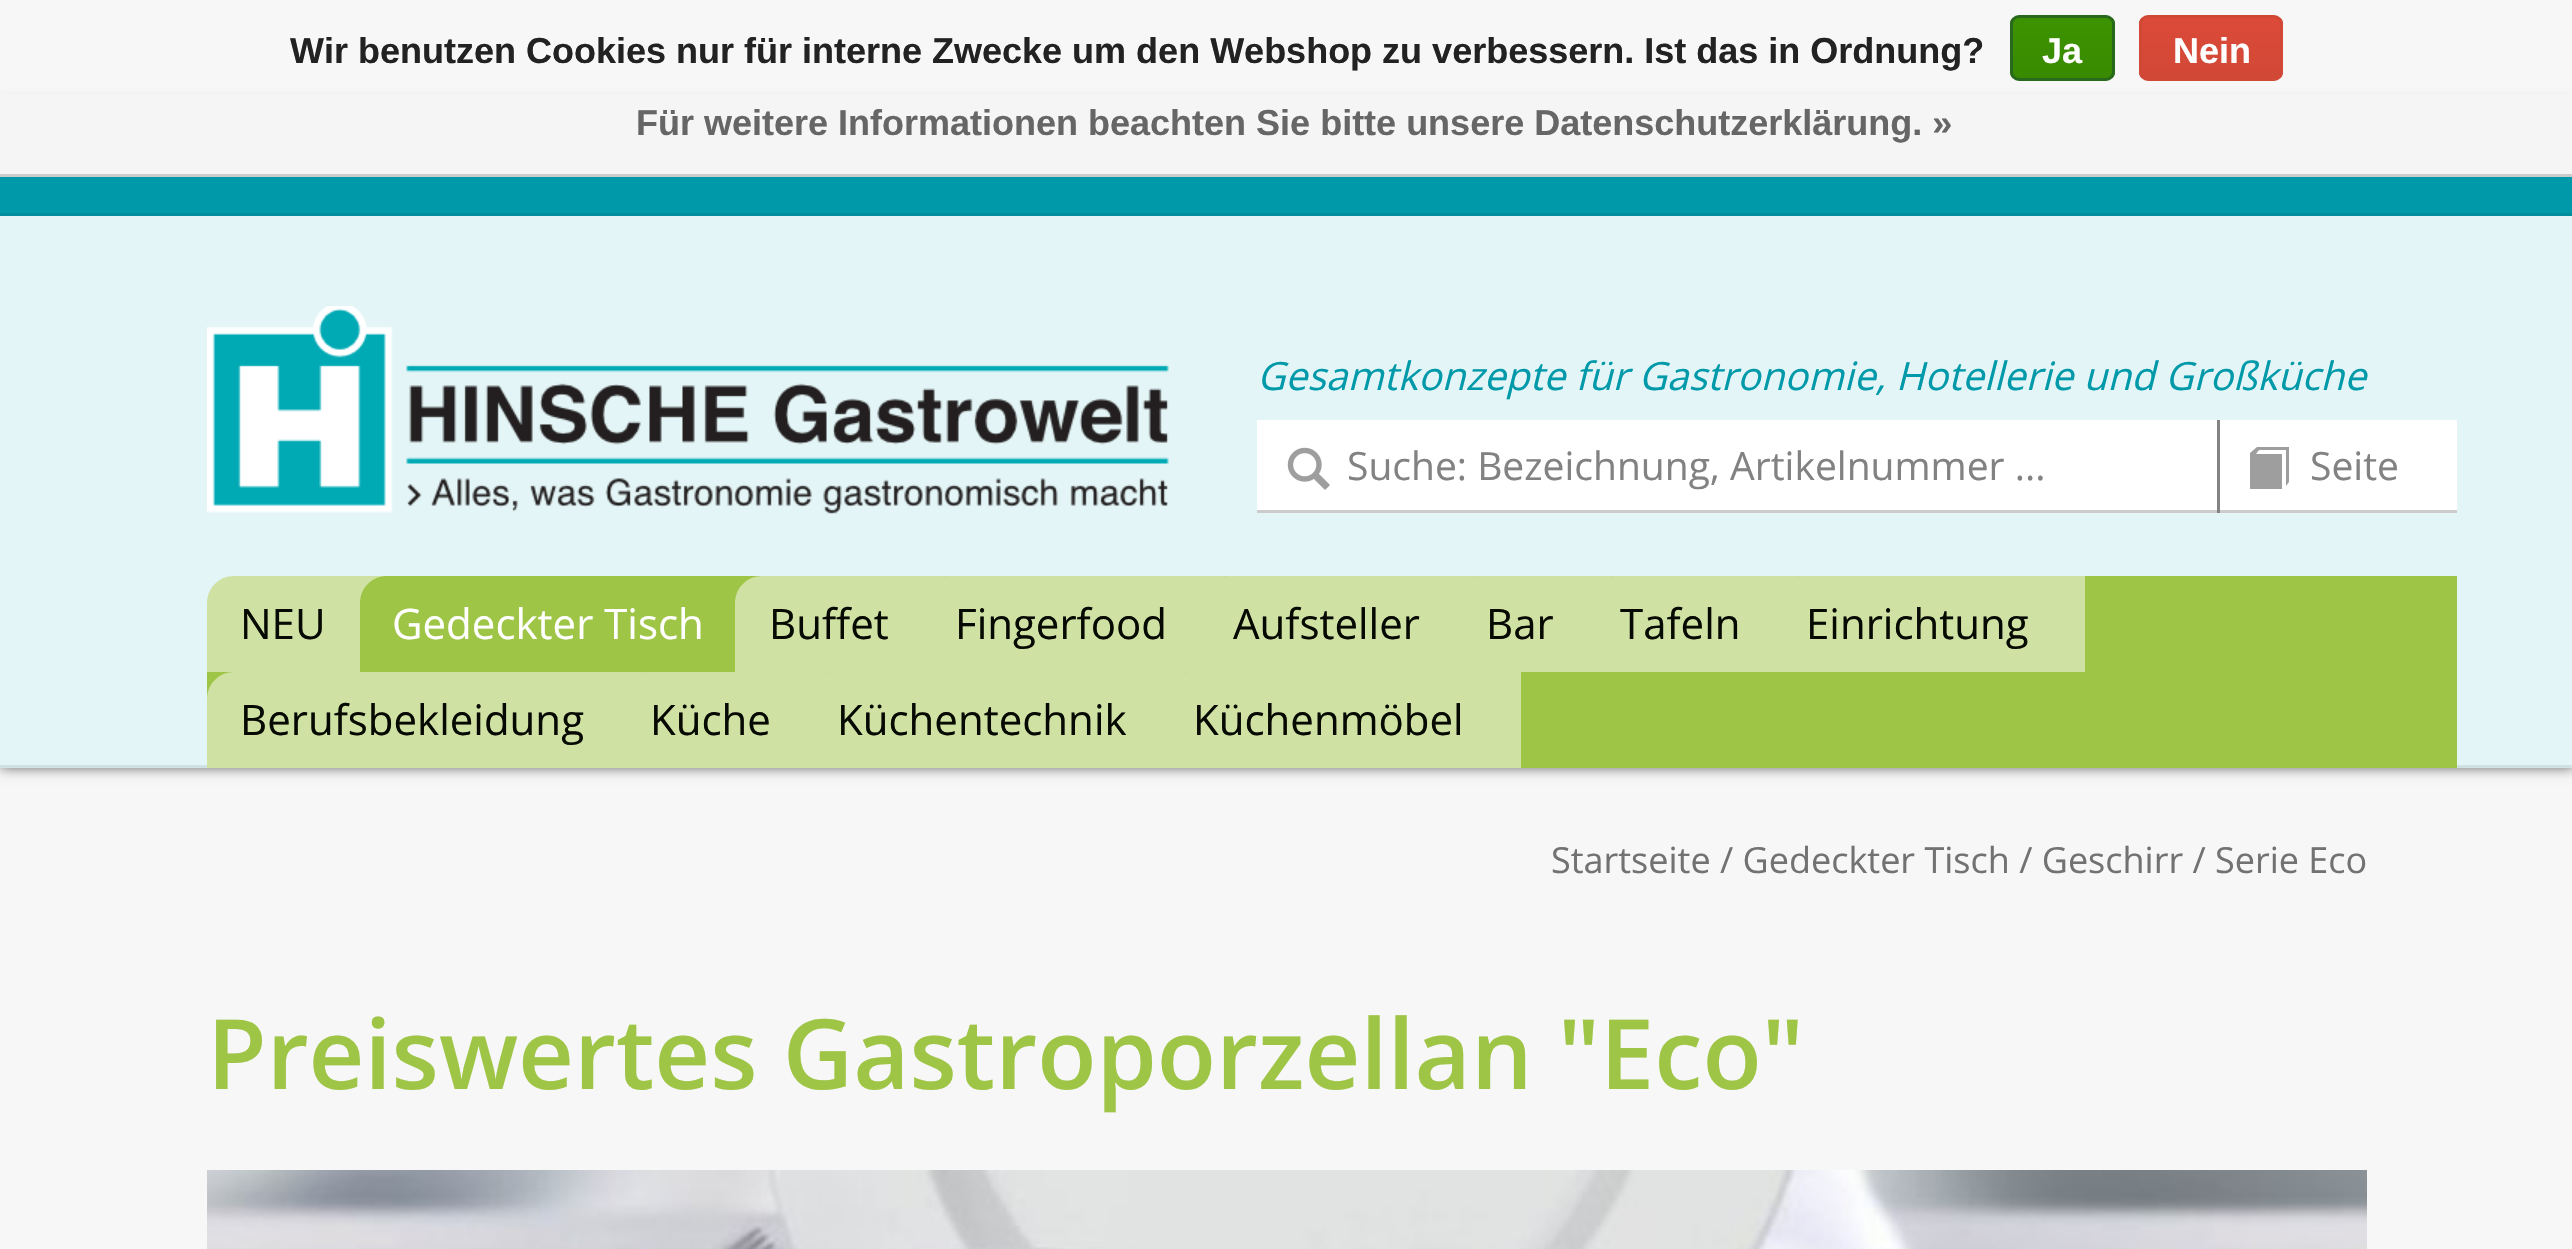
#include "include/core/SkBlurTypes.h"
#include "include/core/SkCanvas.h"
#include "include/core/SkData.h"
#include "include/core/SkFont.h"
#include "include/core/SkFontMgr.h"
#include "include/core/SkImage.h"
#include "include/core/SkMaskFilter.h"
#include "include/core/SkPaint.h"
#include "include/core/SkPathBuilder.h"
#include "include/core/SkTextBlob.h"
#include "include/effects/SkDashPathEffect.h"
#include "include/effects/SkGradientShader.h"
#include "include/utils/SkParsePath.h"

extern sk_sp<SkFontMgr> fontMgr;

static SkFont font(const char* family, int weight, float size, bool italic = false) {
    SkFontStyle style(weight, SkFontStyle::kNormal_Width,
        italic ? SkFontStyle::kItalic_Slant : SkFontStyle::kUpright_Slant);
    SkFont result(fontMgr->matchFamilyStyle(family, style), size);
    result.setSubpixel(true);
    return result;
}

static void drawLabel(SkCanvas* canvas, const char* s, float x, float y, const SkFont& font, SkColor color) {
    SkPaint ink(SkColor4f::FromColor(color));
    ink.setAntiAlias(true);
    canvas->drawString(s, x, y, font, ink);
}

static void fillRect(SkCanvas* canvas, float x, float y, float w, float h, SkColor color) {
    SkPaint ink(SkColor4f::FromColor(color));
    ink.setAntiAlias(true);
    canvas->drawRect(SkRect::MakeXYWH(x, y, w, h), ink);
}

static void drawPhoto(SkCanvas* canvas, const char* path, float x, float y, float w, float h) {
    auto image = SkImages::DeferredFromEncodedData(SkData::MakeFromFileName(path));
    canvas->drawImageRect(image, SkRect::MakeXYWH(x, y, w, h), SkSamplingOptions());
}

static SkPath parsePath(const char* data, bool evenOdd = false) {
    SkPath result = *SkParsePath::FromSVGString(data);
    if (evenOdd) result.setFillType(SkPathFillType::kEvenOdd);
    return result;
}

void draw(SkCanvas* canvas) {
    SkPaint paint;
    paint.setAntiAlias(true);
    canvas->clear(0xFFF7F7F7);
    paint.setColor(0x94000000);
    paint.setMaskFilter(SkMaskFilter::MakeBlur(kNormal_SkBlurStyle, 6));
    canvas->drawRect(SkRect::MakeXYWH(0, 105, 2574, 663), paint);
    paint.setMaskFilter(nullptr);
    fillRect(canvas, 0, 94, 2572, 80, 0xFFF5F5F5);
    fillRect(canvas, 0, 174, 2572, 3, 0xFFCCCCCC);
    SkFont font1 = font("Liberation Sans", 700, 36);
    drawLabel(canvas, "Wir benutzen Cookies nur für interne Zwecke um den Webshop zu verbessern. Ist das in Ordnung?", 290, 63, font1, 0xFF222222);
    canvas->save();
    canvas->clipPath(parsePath("M2019 15H2106C2111 15 2115 19 2115 24V72C2115 77 2111 81 2106 81H2019C2014 81 2010 77 2010 72V24C2010 19 2014 15 2019 15Z"), true);
    {
        const SkColor colors[] = {0xFF3C9300, 0xFF398A00};
        const float stops[] = {0, 1};
        const SkPoint ends[] = {{2063, 18}, {2063, 78}};
        paint.setShader(SkGradientShader::MakeLinear(ends, colors, stops, 2, SkTileMode::kClamp));
        paint.setAlpha(255);
    }
    canvas->drawRect(SkRect::MakeXYWH(2010, 18, 105, 60), paint);
    canvas->restore();
    paint.setStroke(true);
    paint.setStrokeWidth(3);
    paint.setShader(nullptr);
    paint.setColor(0xFF29691D);
    canvas->drawRoundRect(SkRect::MakeXYWH(2011.5f, 16.5f, 102, 63), 7.5f, 7.5f, paint);
    drawLabel(canvas, "Ja", 2042, 63, font1, 0xFFFFFFFF);
    canvas->save();
    canvas->clipPath(parsePath("M2148 15H2274C2279 15 2283 19 2283 24V72C2283 77 2279 81 2274 81H2148C2143 81 2139 77 2139 72V24C2139 19 2143 15 2148 15Z"), true);
    paint.setStroke(false);
    {
        const SkColor colors[] = {0xFFDC4A38, 0xFFD14836};
        const float stops[] = {0, 1};
        const SkPoint ends[] = {{2211, 18}, {2211, 78}};
        paint.setShader(SkGradientShader::MakeLinear(ends, colors, stops, 2, SkTileMode::kClamp));
        paint.setAlpha(255);
    }
    canvas->drawRect(SkRect::MakeXYWH(2139, 18, 144, 60), paint);
    canvas->restore();
    paint.setStroke(true);
    paint.setShader(nullptr);
    paint.setColor(0xFFD14836);
    canvas->drawRoundRect(SkRect::MakeXYWH(2140.5f, 16.5f, 141, 63), 7.5f, 7.5f, paint);
    drawLabel(canvas, "Nein", 2173, 63, font1, 0xFFFFFFFF);
    drawLabel(canvas, "Für weitere Informationen beachten Sie bitte unsere Datenschutzerklärung. »", 636, 135, font1, 0xFF666666);
    fillRect(canvas, 0, 216, 2572, 549, 0xFFE3F5F6);
    fillRect(canvas, 0, 765, 2572, 3, 0xFFD0E1E2);
    fillRect(canvas, 0, 177, 2572, 36, 0xFF0099A9);
    fillRect(canvas, 0, 213, 2572, 3, 0xFF008E9D);
    drawPhoto(canvas, "assets/img1.png", 207, 306, 962, 208);
    SkFont font2 = font("Open Sans", 400, 39, true);
    drawLabel(canvas, "Gesamtkonzepte für Gastronomie, Hotellerie und Großküche", 1257, 390, font2, 0xFF0099A9);
    fillRect(canvas, 1257, 420, 960, 90, 0xFFFFFFFF);
    drawPhoto(canvas, "assets/img2.png", 1287, 447, 43, 43);
    fillRect(canvas, 1257, 510, 1200, 3, 0xFFCCCCCC);
    SkFont font3 = font("Open Sans", 400, 39);
    drawLabel(canvas, "Suche: Bezeichnung, Artikelnummer ...", 1347, 480, font3, 0xFF828282);
    fillRect(canvas, 2220, 420, 237, 90, 0xFFFFFFFF);
    paint.setStroke(false);
    paint.setColor(0xFF9E9E9E);
    canvas->drawPath(parsePath("M2250 489V453L2257 447H2289V482L2286 486V450H2259L2256 454H2282V489Z"), paint);
    fillRect(canvas, 2217, 420, 3, 93, 0xFF838383);
    drawLabel(canvas, "Seite", 2310, 480, font3, 0xFF828282);
    paint.setColor(0xFF9FC546);
    canvas->drawPath(parsePath("M240 576H2457V768H207V609C207 591 222 576 240 576Z"), paint);
    paint.setColor(0xFFCFE2A3);
    canvas->drawPath(parsePath("M234 576H384V672H207V603C207 588 219 576 234 576Z"), paint);
    SkFont font4 = font("Open Sans", 400, 42);
    drawLabel(canvas, "NEU", 240, 639, font4, 0xFF070903);
    paint.setColor(0xFF9FC546);
    canvas->drawPath(parsePath("M387 576H759V672H360V603C360 588 372 576 387 576Z"), paint);
    drawLabel(canvas, "Gedeckter Tisch", 392, 639, font4, 0xFFFFFFFF);
    paint.setColor(0xFFCFE2A3);
    canvas->drawPath(parsePath("M762 576H945V672H735V603C735 588 747 576 762 576Z"), paint);
    drawLabel(canvas, "Buffet", 769, 639, font4, 0xFF070903);
    canvas->drawPath(parsePath("M948 576H1224V672H921V603C921 588 933 576 948 576Z"), paint);
    drawLabel(canvas, "Fingerfood", 955, 639, font4, 0xFF070903);
    canvas->drawPath(parsePath("M1227 576H1476V672H1200V603C1200 588 1212 576 1227 576Z"), paint);
    drawLabel(canvas, "Aufsteller", 1233, 639, font4, 0xFF070903);
    canvas->drawPath(parsePath("M1479 576H1611V672H1452V603C1452 588 1464 576 1479 576Z"), paint);
    drawLabel(canvas, "Bar", 1486, 639, font4, 0xFF070903);
    canvas->drawPath(parsePath("M1614 576H1797V672H1587V603C1587 588 1599 576 1614 576Z"), paint);
    drawLabel(canvas, "Tafeln", 1620, 639, font4, 0xFF070903);
    canvas->drawPath(parsePath("M1800 576H2085V672H1773V603C1773 588 1785 576 1800 576Z"), paint);
    drawLabel(canvas, "Einrichtung", 1806, 639, font4, 0xFF070903);
    canvas->drawPath(parsePath("M234 672H642V768H207V699C207 684 219 672 234 672Z"), paint);
    drawLabel(canvas, "Berufsbekleidung", 240, 735, font4, 0xFF070903);
    canvas->drawPath(parsePath("M645 672H828V768H618V699C618 684 630 672 645 672Z"), paint);
    drawLabel(canvas, "Küche", 650, 735, font4, 0xFF070903);
    canvas->drawPath(parsePath("M831 672H1185V768H804V699C804 684 816 672 831 672Z"), paint);
    drawLabel(canvas, "Küchentechnik", 837, 735, font4, 0xFF070903);
    canvas->drawPath(parsePath("M1188 672H1521V768H1161V699C1161 684 1173 672 1188 672Z"), paint);
    drawLabel(canvas, "Küchenmöbel", 1193, 735, font4, 0xFF070903);
    SkFont font5 = font("Open Sans", 400, 36);
    drawLabel(canvas, "Startseite / Gedeckter Tisch / Geschirr / Serie Eco", 1551, 873, font5, 0xFF727272);
    SkFont font6 = font("Open Sans", 600, 97.1f);
    drawLabel(canvas, "Preiswertes Gastroporzellan \"Eco\"", 207, 1089, font6, 0xFF9FC546);
    drawPhoto(canvas, "assets/img3.png", 207, 1170, 2160, 79);
}
